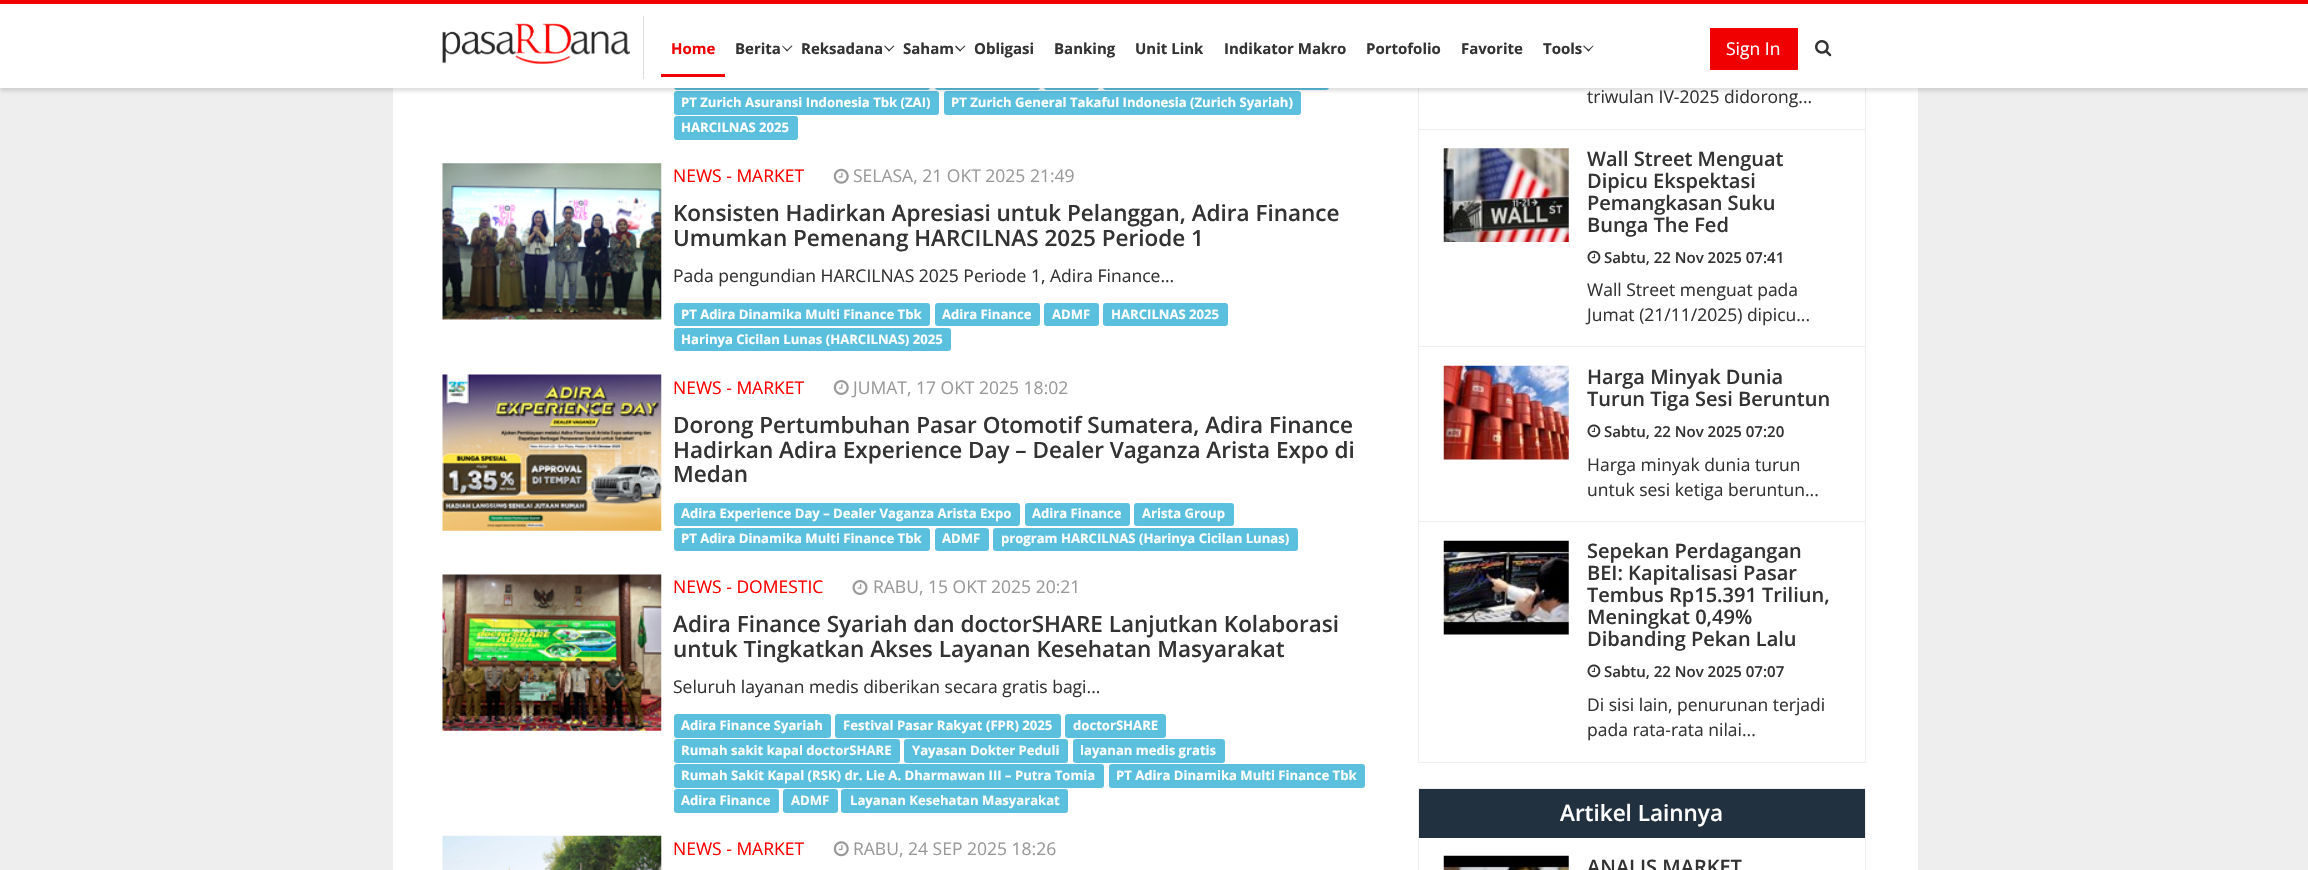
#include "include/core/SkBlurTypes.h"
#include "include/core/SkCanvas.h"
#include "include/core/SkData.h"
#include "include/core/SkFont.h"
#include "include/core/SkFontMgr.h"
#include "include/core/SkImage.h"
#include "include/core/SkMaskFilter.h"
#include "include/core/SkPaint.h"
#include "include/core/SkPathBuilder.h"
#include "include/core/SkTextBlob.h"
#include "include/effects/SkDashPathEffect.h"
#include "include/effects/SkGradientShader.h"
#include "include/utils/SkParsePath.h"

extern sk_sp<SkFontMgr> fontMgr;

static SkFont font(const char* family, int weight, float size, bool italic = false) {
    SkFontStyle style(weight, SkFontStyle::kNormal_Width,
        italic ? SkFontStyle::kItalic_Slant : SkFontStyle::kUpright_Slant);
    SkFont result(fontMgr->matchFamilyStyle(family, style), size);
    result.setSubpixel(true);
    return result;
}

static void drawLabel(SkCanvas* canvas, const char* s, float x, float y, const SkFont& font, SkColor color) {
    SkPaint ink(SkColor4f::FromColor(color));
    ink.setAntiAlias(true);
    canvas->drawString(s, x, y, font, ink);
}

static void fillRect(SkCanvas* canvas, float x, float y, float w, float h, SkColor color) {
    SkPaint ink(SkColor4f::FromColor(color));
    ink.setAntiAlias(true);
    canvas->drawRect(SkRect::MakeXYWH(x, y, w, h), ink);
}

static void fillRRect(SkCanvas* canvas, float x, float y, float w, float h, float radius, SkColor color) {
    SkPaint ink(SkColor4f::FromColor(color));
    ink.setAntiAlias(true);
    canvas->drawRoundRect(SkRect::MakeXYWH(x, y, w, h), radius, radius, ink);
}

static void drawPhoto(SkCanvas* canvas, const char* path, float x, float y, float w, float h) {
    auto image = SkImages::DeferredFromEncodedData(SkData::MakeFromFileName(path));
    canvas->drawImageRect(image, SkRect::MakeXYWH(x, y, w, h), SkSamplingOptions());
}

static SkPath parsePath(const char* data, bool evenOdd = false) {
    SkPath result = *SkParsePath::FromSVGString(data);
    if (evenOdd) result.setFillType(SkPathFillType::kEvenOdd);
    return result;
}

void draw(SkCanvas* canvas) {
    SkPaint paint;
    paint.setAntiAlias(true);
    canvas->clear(0xFFEEEEEE);
    fillRect(canvas, 393, 88, 1525, 782, 0xFFFFFFFF);
    fillRRect(canvas, 674, 66, 256, 24, 3, 0xFF5BC0DE);
    fillRRect(canvas, 935, 66, 105, 24, 3, 0xFF5BC0DE);
    fillRRect(canvas, 1044, 66, 55, 24, 3, 0xFF5BC0DE);
    fillRRect(canvas, 1103, 66, 226, 24, 3, 0xFF5BC0DE);
    fillRRect(canvas, 674, 91, 265, 24, 3, 0xFF5BC0DE);
    fillRRect(canvas, 944, 91, 357, 24, 3, 0xFF5BC0DE);
    paint.setStroke(true);
    paint.setStrokeWidth(1);
    paint.setColor(0xFFEEEEEE);
    canvas->drawRect(SkRect::MakeXYWH(1418.5f, -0.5f, 447, 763), paint);
    paint.setStroke(false);
    paint.setColor(0x21000000);
    paint.setMaskFilter(SkMaskFilter::MakeBlur(kNormal_SkBlurStyle, 2));
    canvas->drawRect(SkRect::MakeXYWH(0, 4, 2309, 87), paint);
    paint.setMaskFilter(nullptr);
    fillRect(canvas, 0, 4, 2308, 84, 0xFFFFFFFF);
    fillRect(canvas, 0, 0, 2308, 4, 0xFFF00000);
    fillRect(canvas, 643, 16, 1, 63, 0xFFDDDDDD);
    drawPhoto(canvas, "assets/img1.png", 442, 23, 188, 41);
    SkFont font1 = font("Open Sans", 700, 15);
    drawLabel(canvas, "Home", 671, 54, font1, 0xFFF00000);
    fillRect(canvas, 661, 74, 64, 3, 0xFFF00000);
    drawLabel(canvas, "Berita", 735, 54, font1, 0xFF333333);
    paint.setColor(0xFF333333);
    canvas->drawPath(parsePath("M786.5 50.5L791.5 45.5L792.5 46L787 51.5Z"), paint);
    canvas->drawPath(parsePath("M782 46L782.5 45.5L788 50.5L787 51.5Z"), paint);
    drawLabel(canvas, "Reksadana", 801, 54, font1, 0xFF333333);
    canvas->drawPath(parsePath("M888.5 50.5L893.5 45.5L894.5 46L889 51.5Z"), paint);
    canvas->drawPath(parsePath("M884 46L885 45.5L890 50.5L889 51.5Z"), paint);
    drawLabel(canvas, "Saham", 903, 54, font1, 0xFF333333);
    canvas->drawPath(parsePath("M959.5 50.5L964.5 45.5L965.5 46L960 51.5Z"), paint);
    canvas->drawPath(parsePath("M955 46.5L956 45.5L961 50.5L960 51.5Z"), paint);
    drawLabel(canvas, "Obligasi", 974, 54, font1, 0xFF333333);
    drawLabel(canvas, "Banking", 1054, 54, font1, 0xFF333333);
    drawLabel(canvas, "Unit Link", 1135, 54, font1, 0xFF333333);
    drawLabel(canvas, "Indikator Makro", 1224, 54, font1, 0xFF333333);
    drawLabel(canvas, "Portofolio", 1366, 54, font1, 0xFF333333);
    drawLabel(canvas, "Favorite", 1461, 54, font1, 0xFF333333);
    drawLabel(canvas, "Tools", 1543, 54, font1, 0xFF333333);
    canvas->drawPath(parsePath("M1587.5 50.5L1593 45.5L1593.5 46L1588.5 51.5Z"), paint);
    canvas->drawPath(parsePath("M1583 46L1584 45.5L1589.5 50.5L1588.5 51.5Z"), paint);
    fillRect(canvas, 1710, 28, 88, 42, 0xFFF00000);
    SkFont font2 = font("Open Sans", 400, 17.5f);
    drawLabel(canvas, "Sign In", 1726, 55, font2, 0xFFFFFFFF);
    drawPhoto(canvas, "assets/img2.png", 1815, 40, 17, 17);
    SkFont font3 = font("Open Sans", 700, 13.1f);
    drawLabel(canvas, "PT Zurich Asuransi Indonesia Tbk (ZAI)", 681, 107, font3, 0xFFFFFFFF);
    drawLabel(canvas, "PT Zurich General Takaful Indonesia (Zurich Syariah)", 951, 107, font3, 0xFFFFFFFF);
    fillRRect(canvas, 674, 116, 124, 24, 3, 0xFF5BC0DE);
    drawLabel(canvas, "HARCILNAS 2025", 681, 132, font3, 0xFFFFFFFF);
    drawPhoto(canvas, "assets/img3.png", 442, 163, 220, 157);
    drawLabel(canvas, "NEWS - MARKET", 673, 182, font2, 0xFFFF0000);
    drawPhoto(canvas, "assets/img4.png", 833, 168, 16, 16);
    drawLabel(canvas, "SELASA, 21 OKT 2025 21:49", 853, 182, font2, 0xFF999999);
    SkFont font4 = font("Open Sans", 600, 22.5f);
    drawLabel(canvas, "Konsisten Hadirkan Apresiasi untuk Pelanggan, Adira Finance", 673, 221, font4, 0xFF333333);
    drawLabel(canvas, "Umumkan Pemenang HARCILNAS 2025 Periode 1", 673, 246, font4, 0xFF333333);
    drawLabel(canvas, "Pada pengundian HARCILNAS 2025 Periode 1, Adira Finance...", 673, 282, font2, 0xFF333333);
    fillRRect(canvas, 674, 303, 256, 23, 3, 0xFF5BC0DE);
    drawLabel(canvas, "PT Adira Dinamika Multi Finance Tbk", 681, 319, font3, 0xFFFFFFFF);
    fillRRect(canvas, 935, 303, 105, 23, 3, 0xFF5BC0DE);
    drawLabel(canvas, "Adira Finance", 942, 319, font3, 0xFFFFFFFF);
    fillRRect(canvas, 1044, 303, 55, 23, 3, 0xFF5BC0DE);
    drawLabel(canvas, "ADMF", 1052, 319, font3, 0xFFFFFFFF);
    fillRRect(canvas, 1103, 303, 125, 23, 3, 0xFF5BC0DE);
    drawLabel(canvas, "HARCILNAS 2025", 1111, 319, font3, 0xFFFFFFFF);
    fillRRect(canvas, 674, 328, 277, 23, 3, 0xFF5BC0DE);
    drawLabel(canvas, "Harinya Cicilan Lunas (HARCILNAS) 2025", 681, 344, font3, 0xFFFFFFFF);
    drawPhoto(canvas, "assets/img5.png", 442, 374, 220, 157);
    drawLabel(canvas, "NEWS - MARKET", 673, 394, font2, 0xFFFF0000);
    drawPhoto(canvas, "assets/img6.png", 833, 380, 16, 15);
    drawLabel(canvas, "JUMAT, 17 OKT 2025 18:02", 853, 394, font2, 0xFF999999);
    drawLabel(canvas, "Dorong Pertumbuhan Pasar Otomotif Sumatera, Adira Finance", 673, 433, font4, 0xFF333333);
    drawLabel(canvas, "Hadirkan Adira Experience Day – Dealer Vaganza Arista Expo di", 673, 458, font4, 0xFF333333);
    drawLabel(canvas, "Medan", 673, 482, font4, 0xFF333333);
    fillRRect(canvas, 674, 503, 346, 23, 3, 0xFF5BC0DE);
    drawLabel(canvas, "Adira Experience Day – Dealer Vaganza Arista Expo", 681, 518, font3, 0xFFFFFFFF);
    fillRRect(canvas, 1025, 503, 105, 23, 3, 0xFF5BC0DE);
    drawLabel(canvas, "Adira Finance", 1032, 518, font3, 0xFFFFFFFF);
    fillRRect(canvas, 1134, 503, 100, 23, 3, 0xFF5BC0DE);
    drawLabel(canvas, "Arista Group", 1142, 518, font3, 0xFFFFFFFF);
    fillRRect(canvas, 674, 528, 256, 23, 3, 0xFF5BC0DE);
    drawLabel(canvas, "PT Adira Dinamika Multi Finance Tbk", 681, 543, font3, 0xFFFFFFFF);
    fillRRect(canvas, 935, 528, 54, 23, 3, 0xFF5BC0DE);
    drawLabel(canvas, "ADMF", 942, 543, font3, 0xFFFFFFFF);
    fillRRect(canvas, 993, 528, 305, 23, 3, 0xFF5BC0DE);
    drawLabel(canvas, "program HARCILNAS (Harinya Cicilan Lunas)", 1001, 543, font3, 0xFFFFFFFF);
    drawPhoto(canvas, "assets/img7.png", 442, 574, 220, 157);
    drawLabel(canvas, "NEWS - DOMESTIC", 673, 593, font2, 0xFFFF0000);
    drawPhoto(canvas, "assets/img8.png", 852, 580, 16, 15);
    drawLabel(canvas, "RABU, 15 OKT 2025 20:21", 873, 593, font2, 0xFF999999);
    drawLabel(canvas, "Adira Finance Syariah dan doctorSHARE Lanjutkan Kolaborasi", 673, 632, font4, 0xFF333333);
    drawLabel(canvas, "untuk Tingkatkan Akses Layanan Kesehatan Masyarakat", 673, 657, font4, 0xFF333333);
    drawLabel(canvas, "Seluruh layanan medis diberikan secara gratis bagi...", 673, 693, font2, 0xFF333333);
    fillRRect(canvas, 674, 714, 157, 24, 3, 0xFF5BC0DE);
    drawLabel(canvas, "Adira Finance Syariah", 681, 730, font3, 0xFFFFFFFF);
    fillRRect(canvas, 835, 714, 226, 24, 3, 0xFF5BC0DE);
    drawLabel(canvas, "Festival Pasar Rakyat (FPR) 2025", 843, 730, font3, 0xFFFFFFFF);
    fillRRect(canvas, 1065, 714, 101, 24, 3, 0xFF5BC0DE);
    drawLabel(canvas, "doctorSHARE", 1073, 730, font3, 0xFFFFFFFF);
    fillRRect(canvas, 674, 739, 226, 24, 3, 0xFF5BC0DE);
    drawLabel(canvas, "Rumah sakit kapal doctorSHARE", 681, 755, font3, 0xFFFFFFFF);
    fillRRect(canvas, 904, 739, 164, 24, 3, 0xFF5BC0DE);
    drawLabel(canvas, "Yayasan Dokter Peduli", 912, 755, font3, 0xFFFFFFFF);
    fillRRect(canvas, 1073, 739, 152, 24, 3, 0xFF5BC0DE);
    drawLabel(canvas, "layanan medis gratis", 1080, 755, font3, 0xFFFFFFFF);
    fillRRect(canvas, 674, 764, 430, 24, 3, 0xFF5BC0DE);
    drawLabel(canvas, "Rumah Sakit Kapal (RSK) dr. Lie A. Dharmawan III – Putra Tomia", 681, 780, font3, 0xFFFFFFFF);
    fillRRect(canvas, 1109, 764, 256, 24, 3, 0xFF5BC0DE);
    drawLabel(canvas, "PT Adira Dinamika Multi Finance Tbk", 1116, 780, font3, 0xFFFFFFFF);
    fillRRect(canvas, 674, 789, 105, 24, 3, 0xFF5BC0DE);
    drawLabel(canvas, "Adira Finance", 681, 805, font3, 0xFFFFFFFF);
    fillRRect(canvas, 783, 789, 55, 24, 3, 0xFF5BC0DE);
    drawLabel(canvas, "ADMF", 791, 805, font3, 0xFFFFFFFF);
    fillRRect(canvas, 841, 789, 227, 24, 3, 0xFF5BC0DE);
    drawLabel(canvas, "Layanan Kesehatan Masyarakat", 850, 805, font3, 0xFFFFFFFF);
    drawPhoto(canvas, "assets/img9.png", 442, 835, 220, 35);
    drawLabel(canvas, "NEWS - MARKET", 673, 855, font2, 0xFFFF0000);
    drawPhoto(canvas, "assets/img10.png", 833, 841, 16, 16);
    drawLabel(canvas, "RABU, 24 SEP 2025 18:26", 853, 855, font2, 0xFF999999);
    fillRect(canvas, 1419, 129, 446, 1, 0xFFEEEEEE);
    drawLabel(canvas, "triwulan IV-2025 didorong...", 1587, 103, font2, 0xFF333333);
    fillRect(canvas, 1419, 346, 446, 1, 0xFFEEEEEE);
    drawPhoto(canvas, "assets/img11.png", 1443, 148, 126, 94);
    SkFont font5 = font("Open Sans", 600, 20);
    drawLabel(canvas, "Wall Street Menguat", 1587, 166, font5, 0xFF333333);
    drawLabel(canvas, "Dipicu Ekspektasi", 1587, 188, font5, 0xFF333333);
    drawLabel(canvas, "Pemangkasan Suku", 1587, 210, font5, 0xFF333333);
    drawLabel(canvas, "Bunga The Fed", 1587, 232, font5, 0xFF333333);
    drawPhoto(canvas, "assets/img12.png", 1587, 250, 14, 14);
    SkFont font6 = font("Open Sans", 600, 15);
    drawLabel(canvas, "Sabtu, 22 Nov 2025 07:41", 1604, 263, font6, 0xFF333333);
    drawLabel(canvas, "Wall Street menguat pada", 1587, 296, font2, 0xFF333333);
    drawLabel(canvas, "Jumat (21/11/2025) dipicu...", 1587, 321, font2, 0xFF333333);
    fillRect(canvas, 1419, 521, 446, 1, 0xFFEEEEEE);
    drawPhoto(canvas, "assets/img13.png", 1443, 365, 126, 95);
    drawLabel(canvas, "Harga Minyak Dunia", 1587, 384, font5, 0xFF333333);
    drawLabel(canvas, "Turun Tiga Sesi Beruntun", 1587, 406, font5, 0xFF333333);
    drawPhoto(canvas, "assets/img14.png", 1587, 424, 14, 14);
    drawLabel(canvas, "Sabtu, 22 Nov 2025 07:20", 1604, 437, font6, 0xFF333333);
    drawLabel(canvas, "Harga minyak dunia turun", 1587, 471, font2, 0xFF333333);
    drawLabel(canvas, "untuk sesi ketiga beruntun...", 1587, 496, font2, 0xFF333333);
    drawPhoto(canvas, "assets/img15.png", 1443, 540, 126, 95);
    drawLabel(canvas, "Sepekan Perdagangan", 1587, 558, font5, 0xFF333333);
    drawLabel(canvas, "BEI: Kapitalisasi Pasar", 1587, 580, font5, 0xFF333333);
    drawLabel(canvas, "Tembus Rp15.391 Triliun,", 1587, 602, font5, 0xFF333333);
    drawLabel(canvas, "Meningkat 0,49%", 1587, 624, font5, 0xFF333333);
    drawLabel(canvas, "Dibanding Pekan Lalu", 1587, 646, font5, 0xFF333333);
    drawPhoto(canvas, "assets/img14.png", 1587, 664, 14, 14);
    drawLabel(canvas, "Sabtu, 22 Nov 2025 07:07", 1604, 677, font6, 0xFF333333);
    drawLabel(canvas, "Di sisi lain, penurunan terjadi", 1587, 711, font2, 0xFF333333);
    drawLabel(canvas, "pada rata-rata nilai...", 1587, 736, font2, 0xFF333333);
    paint.setStroke(true);
    paint.setColor(0xFFEEEEEE);
    canvas->drawRect(SkRect::MakeXYWH(1418.5f, 788.5f, 447, 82), paint);
    fillRect(canvas, 1419, 789, 446, 49, 0xFF22313F);
    drawLabel(canvas, "Artikel Lainnya", 1560, 821, font4, 0xFFFFFFFF);
    drawPhoto(canvas, "assets/img16.png", 1443, 855, 126, 15);
    drawLabel(canvas, "ANALIS MARKET", 1587, 874, font5, 0xFF333333);
}
